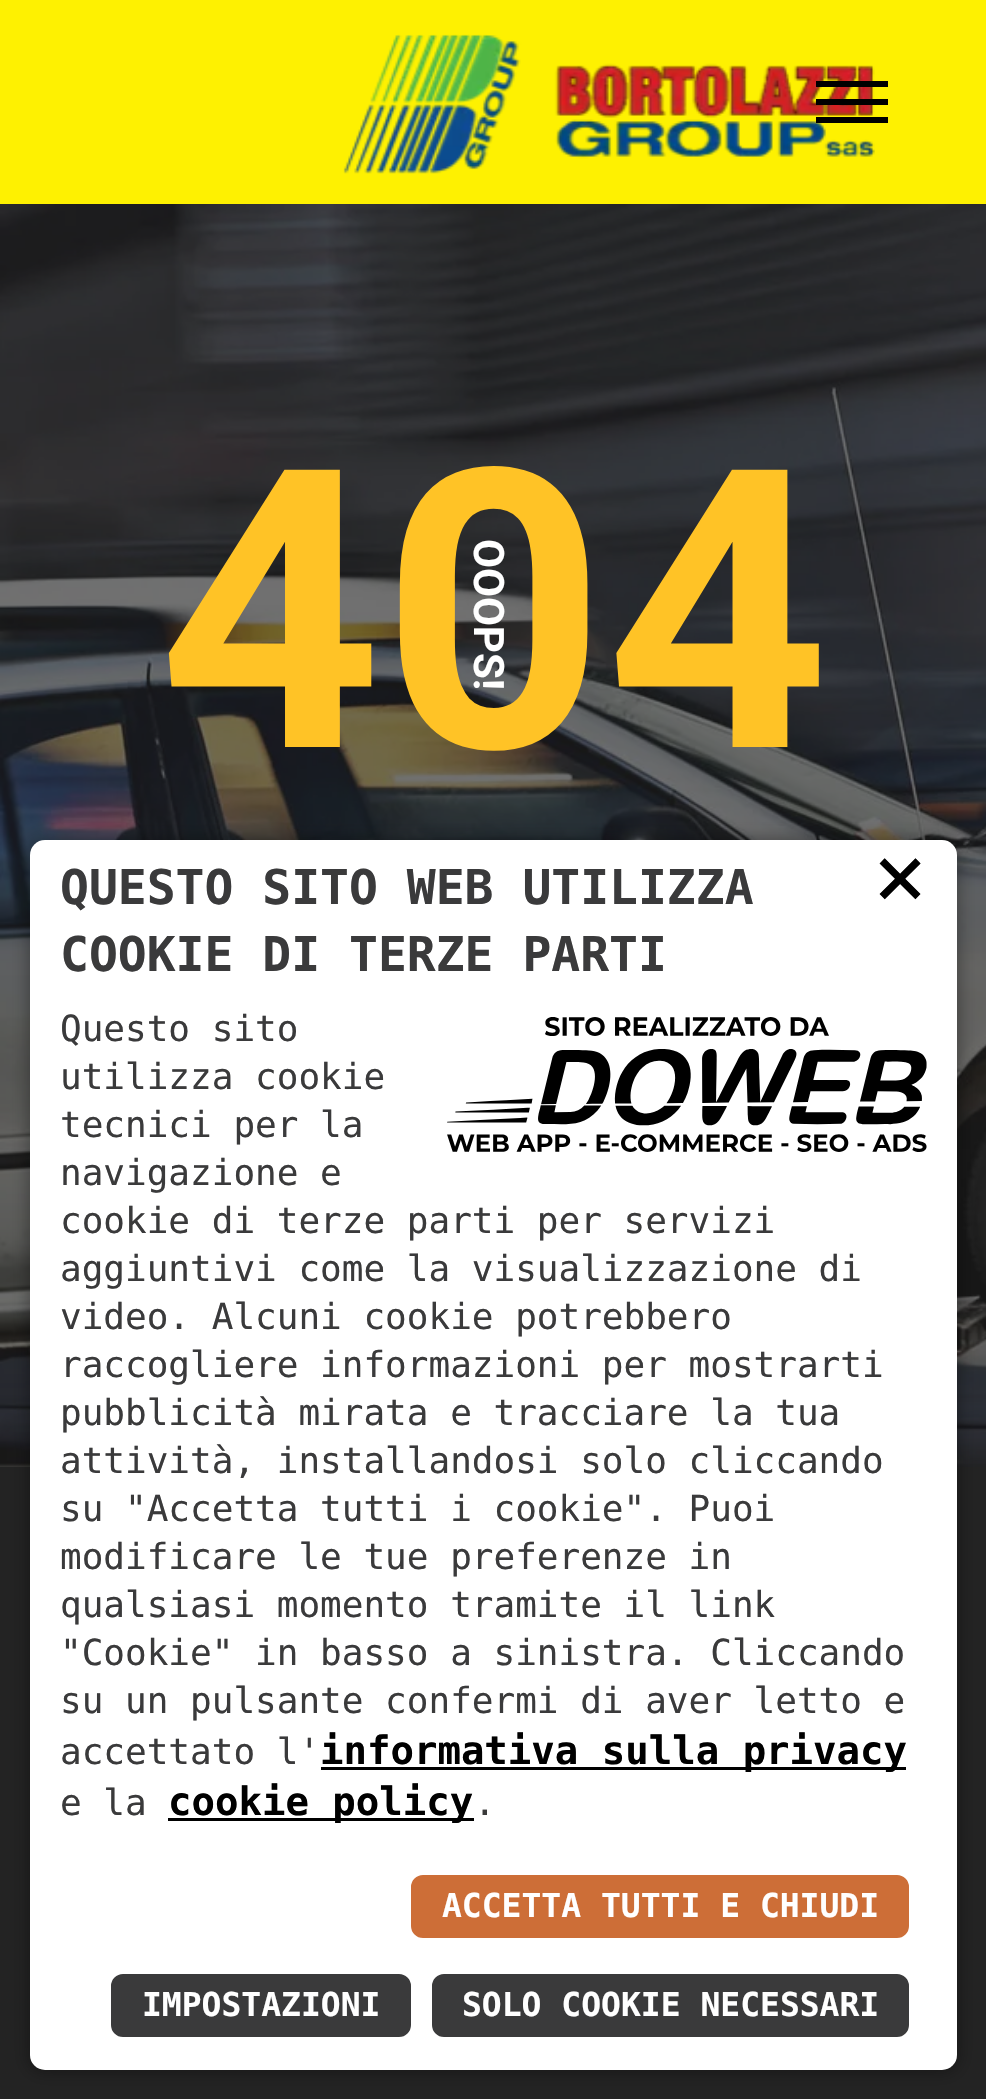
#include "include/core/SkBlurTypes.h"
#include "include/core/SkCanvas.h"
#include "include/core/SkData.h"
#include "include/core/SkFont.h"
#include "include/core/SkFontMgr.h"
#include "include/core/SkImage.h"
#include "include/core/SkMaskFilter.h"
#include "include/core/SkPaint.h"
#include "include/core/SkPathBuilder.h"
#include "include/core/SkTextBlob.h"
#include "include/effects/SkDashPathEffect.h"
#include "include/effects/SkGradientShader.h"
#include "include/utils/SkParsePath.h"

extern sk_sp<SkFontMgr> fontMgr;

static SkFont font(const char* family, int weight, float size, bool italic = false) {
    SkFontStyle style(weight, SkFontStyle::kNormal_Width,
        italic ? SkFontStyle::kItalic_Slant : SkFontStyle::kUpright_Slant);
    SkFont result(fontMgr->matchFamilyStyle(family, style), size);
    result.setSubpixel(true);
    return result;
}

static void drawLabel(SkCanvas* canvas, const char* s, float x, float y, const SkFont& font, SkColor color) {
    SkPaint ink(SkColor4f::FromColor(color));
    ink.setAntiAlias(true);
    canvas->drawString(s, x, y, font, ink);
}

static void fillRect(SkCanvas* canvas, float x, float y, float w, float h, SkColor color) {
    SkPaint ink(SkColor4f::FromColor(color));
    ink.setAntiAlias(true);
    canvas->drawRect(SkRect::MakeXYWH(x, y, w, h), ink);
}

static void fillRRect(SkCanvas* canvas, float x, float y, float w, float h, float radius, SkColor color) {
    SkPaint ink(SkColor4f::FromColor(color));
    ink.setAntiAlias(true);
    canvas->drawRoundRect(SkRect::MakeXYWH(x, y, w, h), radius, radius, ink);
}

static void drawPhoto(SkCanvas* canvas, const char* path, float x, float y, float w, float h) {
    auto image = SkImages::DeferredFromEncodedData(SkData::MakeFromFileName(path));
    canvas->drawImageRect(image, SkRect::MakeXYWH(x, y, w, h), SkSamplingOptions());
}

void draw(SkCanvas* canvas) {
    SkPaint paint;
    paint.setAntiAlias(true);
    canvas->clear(0xFFFEF101);
    drawPhoto(canvas, "assets/img1.png", 343, 34, 532, 140);
    fillRect(canvas, 816, 99, 72, 6, 0xFF000000);
    fillRect(canvas, 816, 81, 72, 6, 0xFF000000);
    fillRect(canvas, 816, 117, 72, 6, 0xFF000000);
    drawPhoto(canvas, "assets/img2.png", 0, 204, 986, 1263);
    SkFont font1 = font("Roboto", 700, 390);
    drawLabel(canvas, "404", 158, 747, font1, 0xFFFFC326);
    SkFont font2 = font("Roboto", 700, 42);
    canvas->save();
    canvas->rotate(90, 474, 539);
    drawLabel(canvas, "OOOPS!", 474, 539, font2, 0xFFFFFFFF);
    canvas->restore();
    fillRect(canvas, 0, 1467, 986, 632, 0xFF232323);
    paint.setColor(0x4D000000);
    paint.setMaskFilter(SkMaskFilter::MakeBlur(kNormal_SkBlurStyle, 7.5f));
    canvas->drawRoundRect(SkRect::MakeXYWH(27, 837, 933, 1236), 18, 18, paint);
    paint.setMaskFilter(nullptr);
    fillRRect(canvas, 30, 840, 927, 1230, 15, 0xFFFFFFFF);
    SkFont font3 = font("DejaVu Sans Mono", 700, 48);
    drawLabel(canvas, "QUESTO SITO WEB UTILIZZA", 60, 904, font3, 0xFF3A3A3B);
    drawLabel(canvas, "COOKIE DI TERZE PARTI", 60, 971, font3, 0xFF3A3A3B);
    SkFont font4 = font("DejaVu Sans Mono", 400, 90);
    drawLabel(canvas, "×", 873, 907, font4, 0xFF000000);
    SkFont font5 = font("DejaVu Sans Mono", 400, 36);
    drawLabel(canvas, "Questo sito", 60, 1041, font5, 0xFF3A3A3B);
    drawPhoto(canvas, "assets/img3.png", 447, 1017, 480, 135);
    drawLabel(canvas, "utilizza cookie", 60, 1089, font5, 0xFF3A3A3B);
    drawLabel(canvas, "tecnici per la", 60, 1137, font5, 0xFF3A3A3B);
    drawLabel(canvas, "navigazione e", 60, 1185, font5, 0xFF3A3A3B);
    drawLabel(canvas, "cookie di terze parti per servizi", 60, 1233, font5, 0xFF3A3A3B);
    drawLabel(canvas, "aggiuntivi come la visualizzazione di", 60, 1281, font5, 0xFF3A3A3B);
    drawLabel(canvas, "video. Alcuni cookie potrebbero", 60, 1329, font5, 0xFF3A3A3B);
    drawLabel(canvas, "raccogliere informazioni per mostrarti", 60, 1377, font5, 0xFF3A3A3B);
    drawLabel(canvas, "pubblicità mirata e tracciare la tua", 60, 1425, font5, 0xFF3A3A3B);
    drawLabel(canvas, "attività, installandosi solo cliccando", 60, 1473, font5, 0xFF3A3A3B);
    drawLabel(canvas, "su \"Accetta tutti i cookie\". Puoi", 60, 1521, font5, 0xFF3A3A3B);
    drawLabel(canvas, "modificare le tue preferenze in", 60, 1569, font5, 0xFF3A3A3B);
    drawLabel(canvas, "qualsiasi momento tramite il link", 60, 1617, font5, 0xFF3A3A3B);
    drawLabel(canvas, "\"Cookie\" in basso a sinistra. Cliccando", 60, 1665, font5, 0xFF3A3A3B);
    drawLabel(canvas, "su un pulsante confermi di aver letto e", 60, 1713, font5, 0xFF3A3A3B);
    drawLabel(canvas, "accettato l'", 60, 1764, font5, 0xFF3A3A3B);
    fillRect(canvas, 321, 1767, 585, 3, 0xFF000000);
    SkFont font6 = font("DejaVu Sans Mono", 700, 39);
    drawLabel(canvas, "informativa sulla privacy", 320, 1764, font6, 0xFF000000);
    drawLabel(canvas, "e la", 60, 1815, font5, 0xFF3A3A3B);
    fillRect(canvas, 168, 1818, 306, 3, 0xFF000000);
    drawLabel(canvas, "cookie policy", 168, 1815, font6, 0xFF000000);
    drawLabel(canvas, ".", 474, 1815, font5, 0xFF3A3A3B);
    paint.setColor(0xFFCD6E37);
    canvas->drawRoundRect(SkRect::MakeXYWH(409.5f, 1873.5f, 501, 66), 13.5f, 13.5f, paint);
    paint.setStroke(true);
    paint.setStrokeWidth(3);
    paint.setColor(0xFFFFFFFF);
    canvas->drawRoundRect(SkRect::MakeXYWH(409.5f, 1873.5f, 501, 66), 13.5f, 13.5f, paint);
    SkFont font7 = font("DejaVu Sans Mono", 700, 33);
    drawLabel(canvas, "ACCETTA TUTTI E CHIUDI", 442, 1917, font7, 0xFFFFFFFF);
    paint.setStroke(false);
    paint.setColor(0xFF3A3A3B);
    canvas->drawRoundRect(SkRect::MakeXYWH(109.5f, 1972.5f, 303, 66), 13.5f, 13.5f, paint);
    paint.setStroke(true);
    paint.setColor(0xFFFFFFFF);
    canvas->drawRoundRect(SkRect::MakeXYWH(109.5f, 1972.5f, 303, 66), 13.5f, 13.5f, paint);
    drawLabel(canvas, "IMPOSTAZIONI", 142, 2016, font7, 0xFFFFFFFF);
    paint.setStroke(false);
    paint.setColor(0xFF3A3A3B);
    canvas->drawRoundRect(SkRect::MakeXYWH(430.5f, 1972.5f, 480, 66), 13.5f, 13.5f, paint);
    paint.setStroke(true);
    paint.setColor(0xFFFFFFFF);
    canvas->drawRoundRect(SkRect::MakeXYWH(430.5f, 1972.5f, 480, 66), 13.5f, 13.5f, paint);
    drawLabel(canvas, "SOLO COOKIE NECESSARI", 462, 2016, font7, 0xFFFFFFFF);
}
